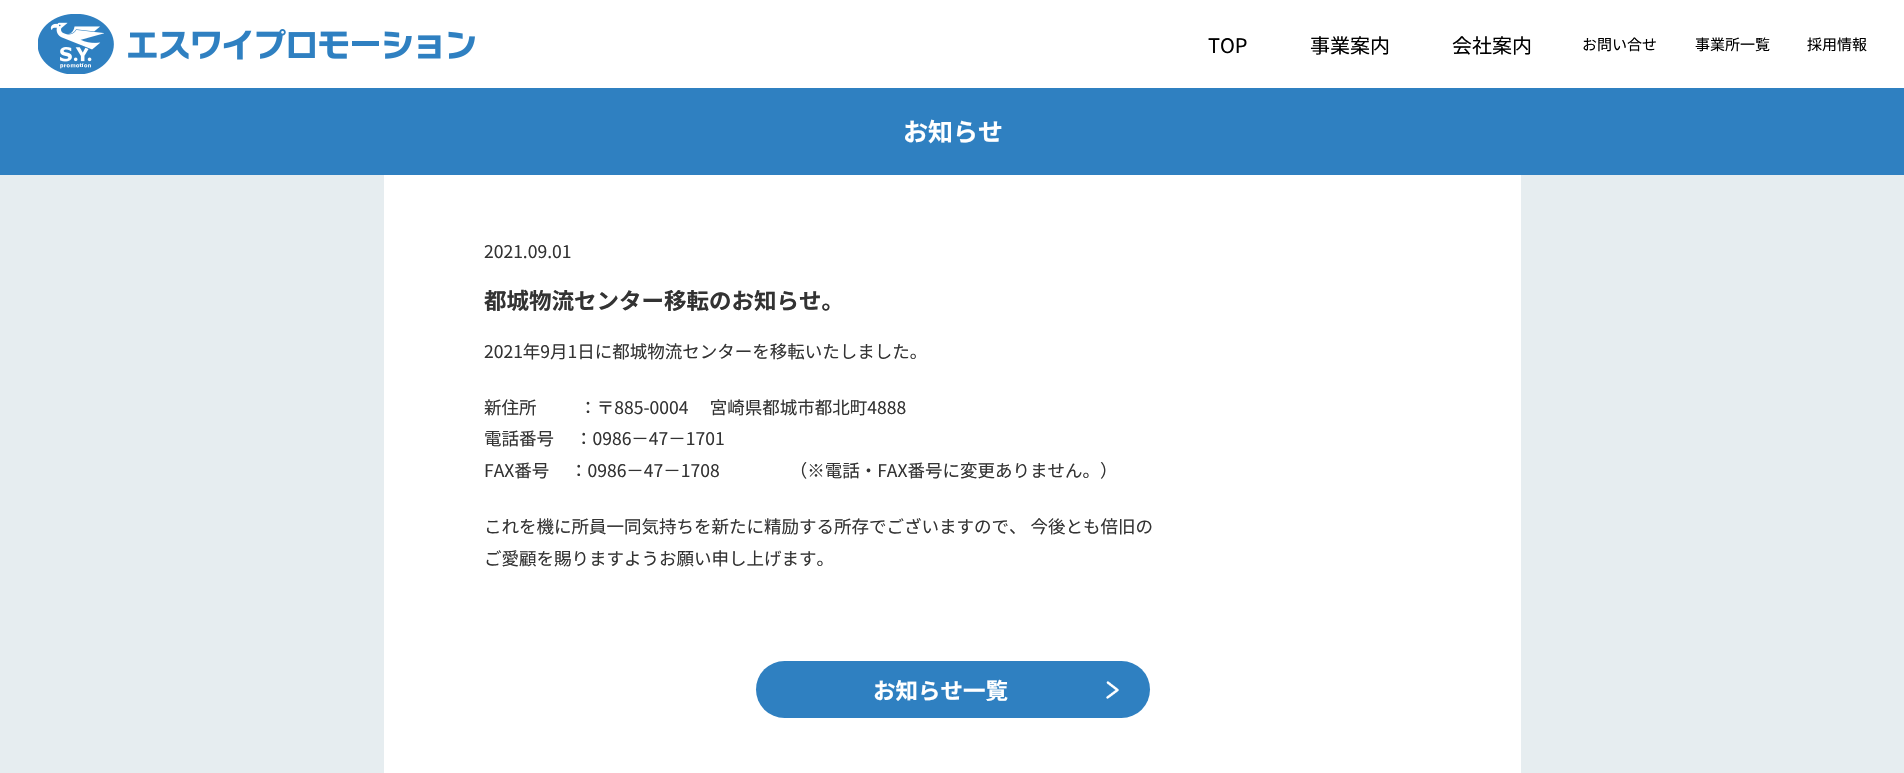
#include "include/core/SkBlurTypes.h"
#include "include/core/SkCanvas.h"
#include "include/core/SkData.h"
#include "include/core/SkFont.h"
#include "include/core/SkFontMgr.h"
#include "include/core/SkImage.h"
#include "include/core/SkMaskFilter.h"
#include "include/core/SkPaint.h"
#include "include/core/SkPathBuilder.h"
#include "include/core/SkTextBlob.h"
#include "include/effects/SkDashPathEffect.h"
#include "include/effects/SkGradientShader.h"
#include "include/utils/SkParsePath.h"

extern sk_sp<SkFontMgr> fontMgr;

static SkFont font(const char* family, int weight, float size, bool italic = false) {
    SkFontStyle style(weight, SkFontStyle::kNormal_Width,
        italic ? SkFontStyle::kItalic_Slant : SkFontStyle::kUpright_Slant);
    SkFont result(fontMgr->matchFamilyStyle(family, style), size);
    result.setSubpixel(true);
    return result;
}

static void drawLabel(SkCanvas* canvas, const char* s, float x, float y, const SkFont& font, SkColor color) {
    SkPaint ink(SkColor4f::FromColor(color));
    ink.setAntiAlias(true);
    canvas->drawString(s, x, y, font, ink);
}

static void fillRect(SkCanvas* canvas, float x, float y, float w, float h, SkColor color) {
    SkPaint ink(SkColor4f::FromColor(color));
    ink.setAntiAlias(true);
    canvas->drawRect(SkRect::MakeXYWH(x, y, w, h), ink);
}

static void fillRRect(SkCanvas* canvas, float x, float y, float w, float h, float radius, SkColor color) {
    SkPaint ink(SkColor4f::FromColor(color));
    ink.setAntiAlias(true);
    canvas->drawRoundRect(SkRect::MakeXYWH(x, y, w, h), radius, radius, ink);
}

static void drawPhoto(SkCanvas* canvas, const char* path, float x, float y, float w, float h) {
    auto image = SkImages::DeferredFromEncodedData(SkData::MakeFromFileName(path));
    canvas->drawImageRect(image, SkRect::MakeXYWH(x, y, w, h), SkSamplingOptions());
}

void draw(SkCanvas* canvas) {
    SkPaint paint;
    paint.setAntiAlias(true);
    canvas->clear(0xFFFFFFFF);
    drawPhoto(canvas, "assets/img1.png", 38, 14, 437, 60);
    SkFont font1 = font("Noto Sans JP", 400, 20);
    drawLabel(canvas, "TOP", 1208, 53, font1, 0xFF000000);
    drawLabel(canvas, "事業案内", 1310, 53, font1, 0xFF000000);
    drawLabel(canvas, "会社案内", 1452, 53, font1, 0xFF000000);
    SkFont font2 = font("Noto Sans JP", 400, 15);
    drawLabel(canvas, "お問い合せ", 1582, 50, font2, 0xFF000000);
    drawLabel(canvas, "事業所一覧", 1695, 50, font2, 0xFF000000);
    drawLabel(canvas, "採用情報", 1807, 50, font2, 0xFF000000);
    fillRect(canvas, 0, 175, 1904, 598, 0xFFE6EDF0);
    fillRect(canvas, 0, 88, 1904, 87, 0xFF2F80C1);
    SkFont font3 = font("Noto Sans JP", 700, 25);
    drawLabel(canvas, "お知らせ", 903, 141, font3, 0xFFFFFFFF);
    fillRect(canvas, 384, 175, 1137, 598, 0xFFFFFFFF);
    SkFont font4 = font("Noto Sans JP", 400, 17.5f);
    drawLabel(canvas, "2021.09.01", 484, 258, font4, 0xFF333333);
    SkFont font5 = font("Noto Sans JP", 700, 22.5f);
    drawLabel(canvas, "都城物流センター移転のお知らせ。", 484, 309, font5, 0xFF333333);
    drawLabel(canvas, "2021年9月1日に都城物流センターを移転いたしました。", 484, 358, font4, 0xFF333333);
    drawLabel(canvas, "新住所　　  ：〒885-0004 　宮崎県都城市都北町4888", 484, 414, font4, 0xFF333333);
    drawLabel(canvas, "電話番号", 484, 445, font4, 0xFF333333);
    drawLabel(canvas, "：0986－47－1701", 575, 445, font4, 0xFF333333);
    drawLabel(canvas, "FAX番号", 484, 477, font4, 0xFF333333);
    drawLabel(canvas, "：0986－47－1708　　　　（※電話・FAX番号に変更ありません。）", 570, 477, font4, 0xFF333333);
    drawLabel(canvas, "これを機に所員一同気持ちを新たに精励する所存でございますので、 今後とも倍旧の", 484, 533, font4, 0xFF333333);
    drawLabel(canvas, "ご愛顧を賜りますようお願い申し上げます。", 484, 565, font4, 0xFF333333);
    fillRRect(canvas, 756, 661, 394, 57, 28.5f, 0xFF2F80C1);
    drawLabel(canvas, "お知らせ一覧", 873, 699, font5, 0xFFFFFFFF);
    drawPhoto(canvas, "assets/img2.png", 1106, 681, 13, 18);
}
